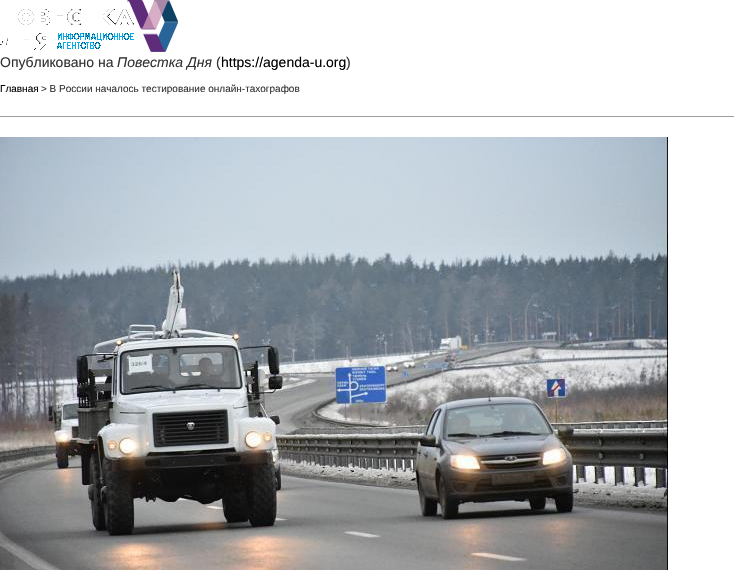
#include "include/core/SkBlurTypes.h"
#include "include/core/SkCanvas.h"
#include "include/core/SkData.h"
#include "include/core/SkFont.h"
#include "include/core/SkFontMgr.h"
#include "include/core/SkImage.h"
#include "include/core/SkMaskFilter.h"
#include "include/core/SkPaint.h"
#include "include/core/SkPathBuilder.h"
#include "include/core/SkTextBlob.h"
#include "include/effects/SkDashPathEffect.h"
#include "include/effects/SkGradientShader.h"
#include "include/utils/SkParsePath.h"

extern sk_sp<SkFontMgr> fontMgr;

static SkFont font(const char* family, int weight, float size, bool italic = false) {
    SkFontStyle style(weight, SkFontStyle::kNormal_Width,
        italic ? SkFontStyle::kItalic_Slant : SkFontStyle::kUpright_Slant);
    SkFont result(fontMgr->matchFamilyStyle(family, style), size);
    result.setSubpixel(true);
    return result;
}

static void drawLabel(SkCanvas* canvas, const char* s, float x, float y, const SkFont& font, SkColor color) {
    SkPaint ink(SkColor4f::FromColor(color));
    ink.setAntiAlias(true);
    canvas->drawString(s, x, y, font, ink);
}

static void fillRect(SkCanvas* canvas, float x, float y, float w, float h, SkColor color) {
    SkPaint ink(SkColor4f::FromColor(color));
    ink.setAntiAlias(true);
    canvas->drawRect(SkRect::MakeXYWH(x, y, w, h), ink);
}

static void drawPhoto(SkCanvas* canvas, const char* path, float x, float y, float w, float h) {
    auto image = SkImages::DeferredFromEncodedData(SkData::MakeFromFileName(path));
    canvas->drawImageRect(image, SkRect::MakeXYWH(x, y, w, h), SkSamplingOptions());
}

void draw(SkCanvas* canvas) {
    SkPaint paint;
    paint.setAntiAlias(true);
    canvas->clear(0xFFFFFFFF);
    drawPhoto(canvas, "assets/img1.png", 0, 0, 178, 52);
    SkFont font1 = font("Liberation Sans", 400, 14);
    drawLabel(canvas, "Опубликовано на", 0, 67, font1, 0xFF333333);
    SkFont font2 = font("Liberation Sans", 400, 14, true);
    drawLabel(canvas, "Повестка Дня", 117, 67, font2, 0xFF333333);
    drawLabel(canvas, "(", 216, 67, font1, 0xFF333333);
    drawLabel(canvas, "https://agenda-u.org", 221, 67, font1, 0xFF000000);
    drawLabel(canvas, ")", 346, 67, font1, 0xFF333333);
    SkFont font3 = font("Liberation Sans", 400, 10);
    drawLabel(canvas, "Главная", 0, 92, font3, 0xFF000000);
    drawLabel(canvas, "> В России началось тестирование онлайн-тахографов", 41, 92, font3, 0xFF333333);
    fillRect(canvas, 0, 116, 734, 1, 0xFF9E9E9E);
    drawPhoto(canvas, "assets/img2.png", 0, 137, 668, 433);
}
